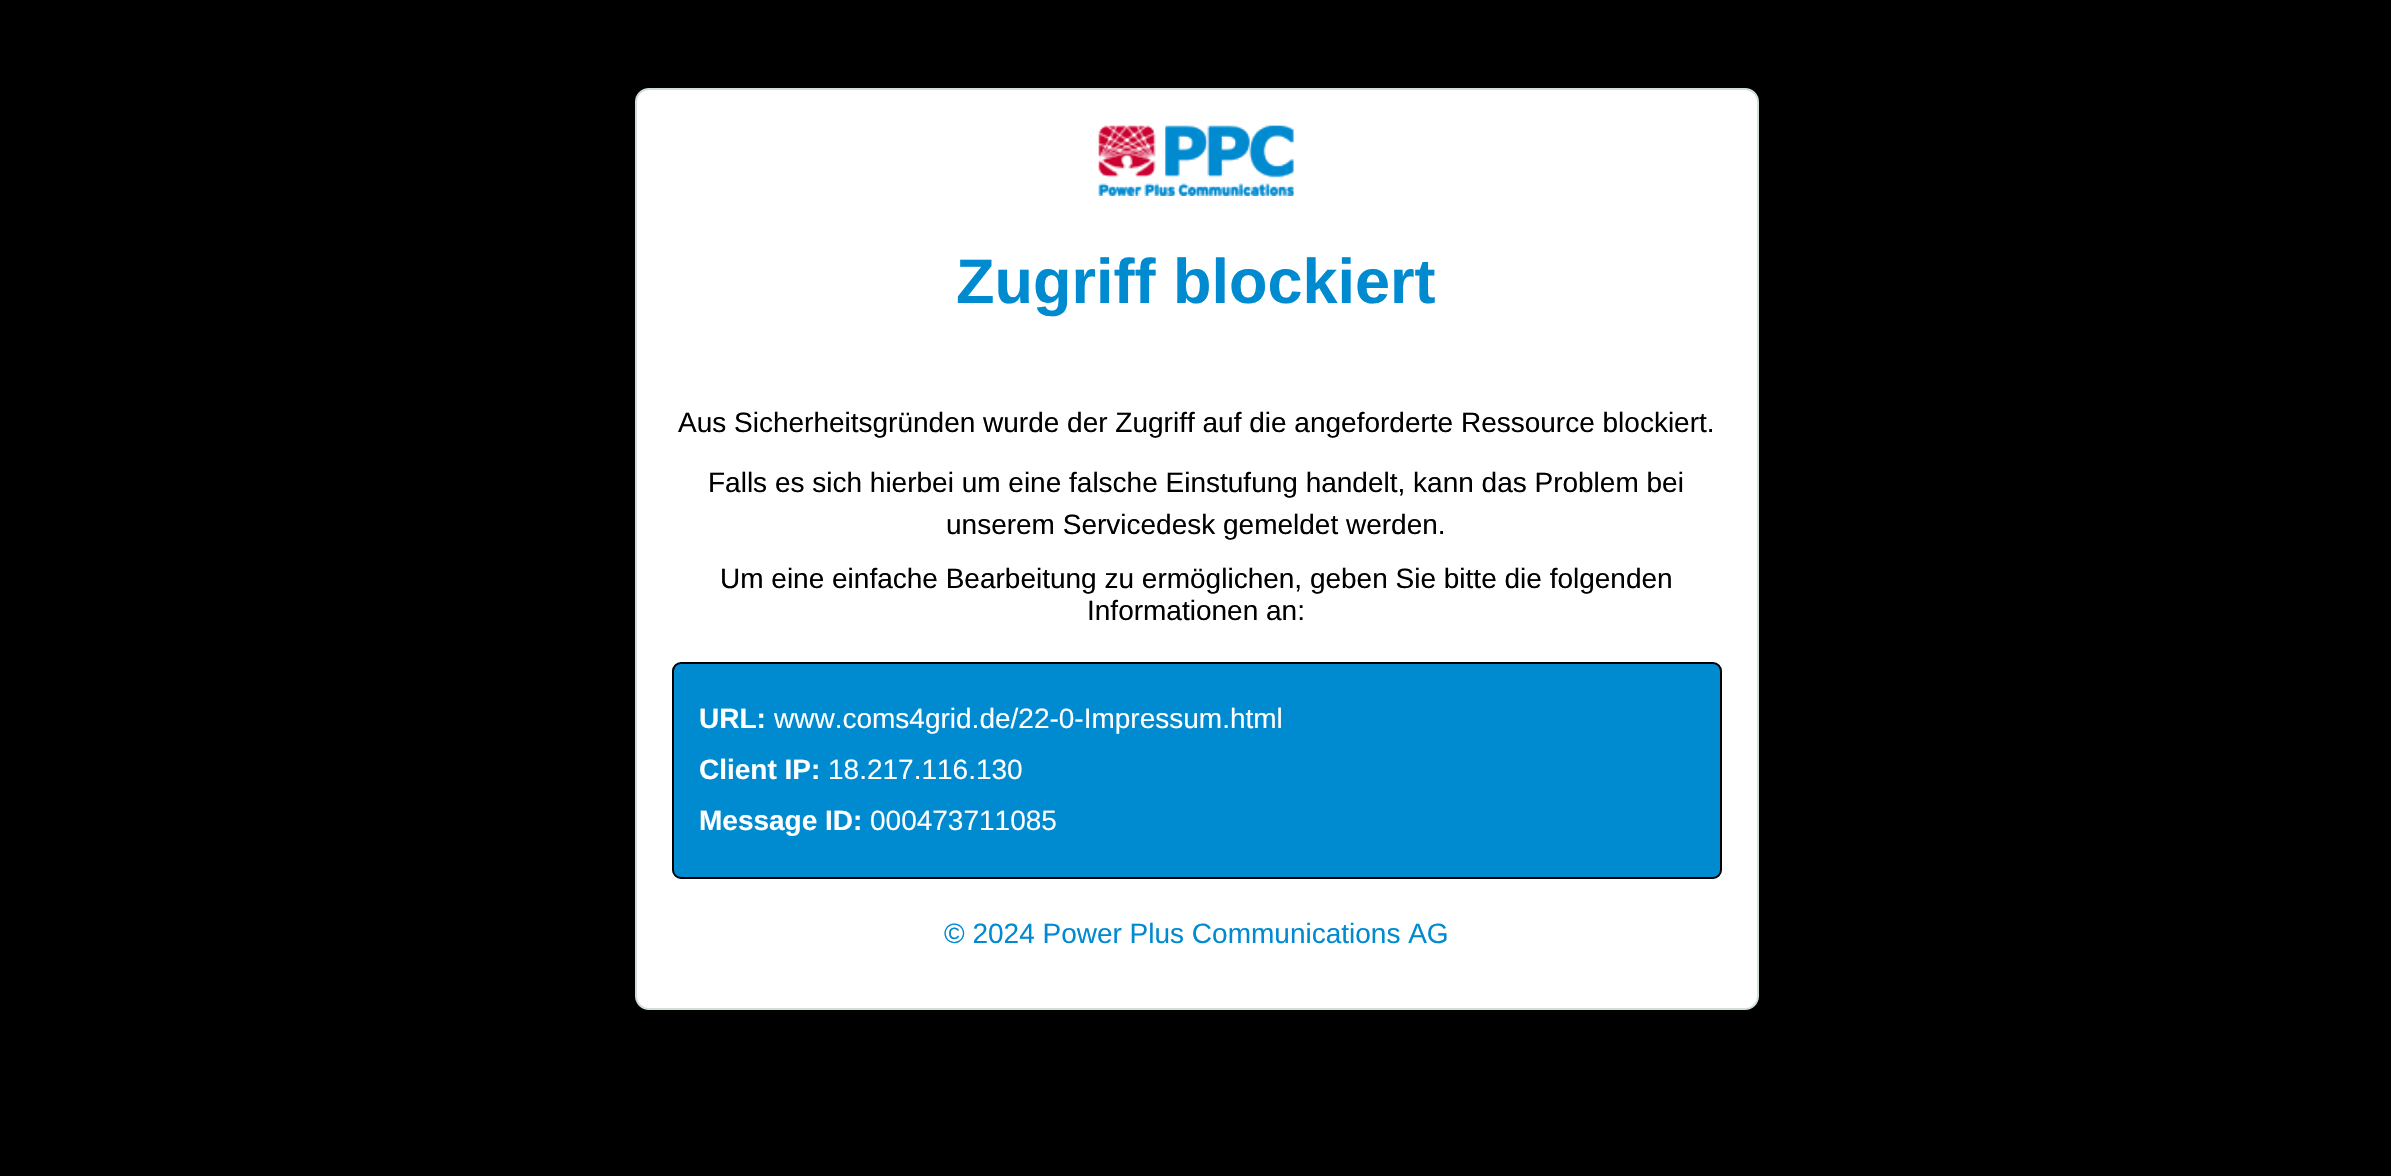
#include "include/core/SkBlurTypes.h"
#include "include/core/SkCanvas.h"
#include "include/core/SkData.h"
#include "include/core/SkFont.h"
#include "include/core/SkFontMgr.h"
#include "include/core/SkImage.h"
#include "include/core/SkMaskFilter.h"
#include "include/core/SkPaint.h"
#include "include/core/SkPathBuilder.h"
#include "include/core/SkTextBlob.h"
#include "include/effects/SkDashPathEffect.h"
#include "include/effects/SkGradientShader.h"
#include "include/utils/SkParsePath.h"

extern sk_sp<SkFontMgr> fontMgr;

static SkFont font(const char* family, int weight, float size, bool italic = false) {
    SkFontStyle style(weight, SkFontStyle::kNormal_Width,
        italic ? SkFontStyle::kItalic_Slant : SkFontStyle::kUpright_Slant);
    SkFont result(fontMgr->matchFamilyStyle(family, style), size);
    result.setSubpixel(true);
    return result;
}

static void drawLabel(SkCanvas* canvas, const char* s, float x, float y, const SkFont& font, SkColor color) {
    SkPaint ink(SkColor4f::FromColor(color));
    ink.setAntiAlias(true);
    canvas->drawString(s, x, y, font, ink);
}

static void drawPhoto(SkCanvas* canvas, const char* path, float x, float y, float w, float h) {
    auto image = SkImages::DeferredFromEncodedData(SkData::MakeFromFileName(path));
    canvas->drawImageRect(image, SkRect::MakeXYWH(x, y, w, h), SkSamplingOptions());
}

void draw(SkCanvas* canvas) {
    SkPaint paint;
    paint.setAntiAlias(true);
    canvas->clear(0xFF000000);
    paint.setColor(0xFFFFFFFF);
    canvas->drawRoundRect(SkRect::MakeXYWH(636, 89, 1122, 920), 13, 13, paint);
    paint.setStroke(true);
    paint.setStrokeWidth(2);
    paint.setColor(0xFFD0E0D5);
    canvas->drawRoundRect(SkRect::MakeXYWH(636, 89, 1122, 920), 13, 13, paint);
    drawPhoto(canvas, "assets/img1.png", 1098, 125, 196, 71);
    drawPhoto(canvas, "assets/img2.png", 1098, 125, 196, 71);
    SkFont font1 = font("Liberation Sans", 700, 63);
    drawLabel(canvas, "Zugriff blockiert", 956, 303, font1, 0xFF008AD0);
    SkFont font2 = font("Liberation Sans", 400, 28);
    drawLabel(canvas, "Aus Sicherheitsgründen wurde der Zugriff auf die angeforderte Ressource blockiert.", 678, 432, font2, 0xFF000000);
    drawLabel(canvas, "Falls es sich hierbei um eine falsche Einstufung handelt, kann das Problem bei", 708, 492, font2, 0xFF000000);
    drawLabel(canvas, "unserem Servicedesk gemeldet werden.", 946, 534, font2, 0xFF000000);
    drawLabel(canvas, "Um eine einfache Bearbeitung zu ermöglichen, geben Sie bitte die folgenden", 720, 588, font2, 0xFF000000);
    drawLabel(canvas, "Informationen an:", 1087, 620, font2, 0xFF000000);
    paint.setStroke(false);
    paint.setColor(0xFF008AD0);
    canvas->drawRoundRect(SkRect::MakeXYWH(673, 663, 1048, 215), 8, 8, paint);
    paint.setStroke(true);
    paint.setColor(0xFF000000);
    canvas->drawRoundRect(SkRect::MakeXYWH(673, 663, 1048, 215), 8, 8, paint);
    SkFont font3 = font("Liberation Sans", 700, 28);
    drawLabel(canvas, "URL:", 699, 728, font3, 0xFFFFFFFF);
    drawLabel(canvas, "www.coms4grid.de/22-0-Impressum.html", 774, 728, font2, 0xFFFFFFFF);
    drawLabel(canvas, "Client IP:", 699, 779, font3, 0xFFFFFFFF);
    drawLabel(canvas, "18.217.116.130", 828, 779, font2, 0xFFFFFFFF);
    drawLabel(canvas, "Message ID:", 699, 830, font3, 0xFFFFFFFF);
    drawLabel(canvas, "000473711085", 870, 830, font2, 0xFFFFFFFF);
    drawLabel(canvas, "© 2024 Power Plus Communications AG", 944, 943, font2, 0xFF008AD0);
}
